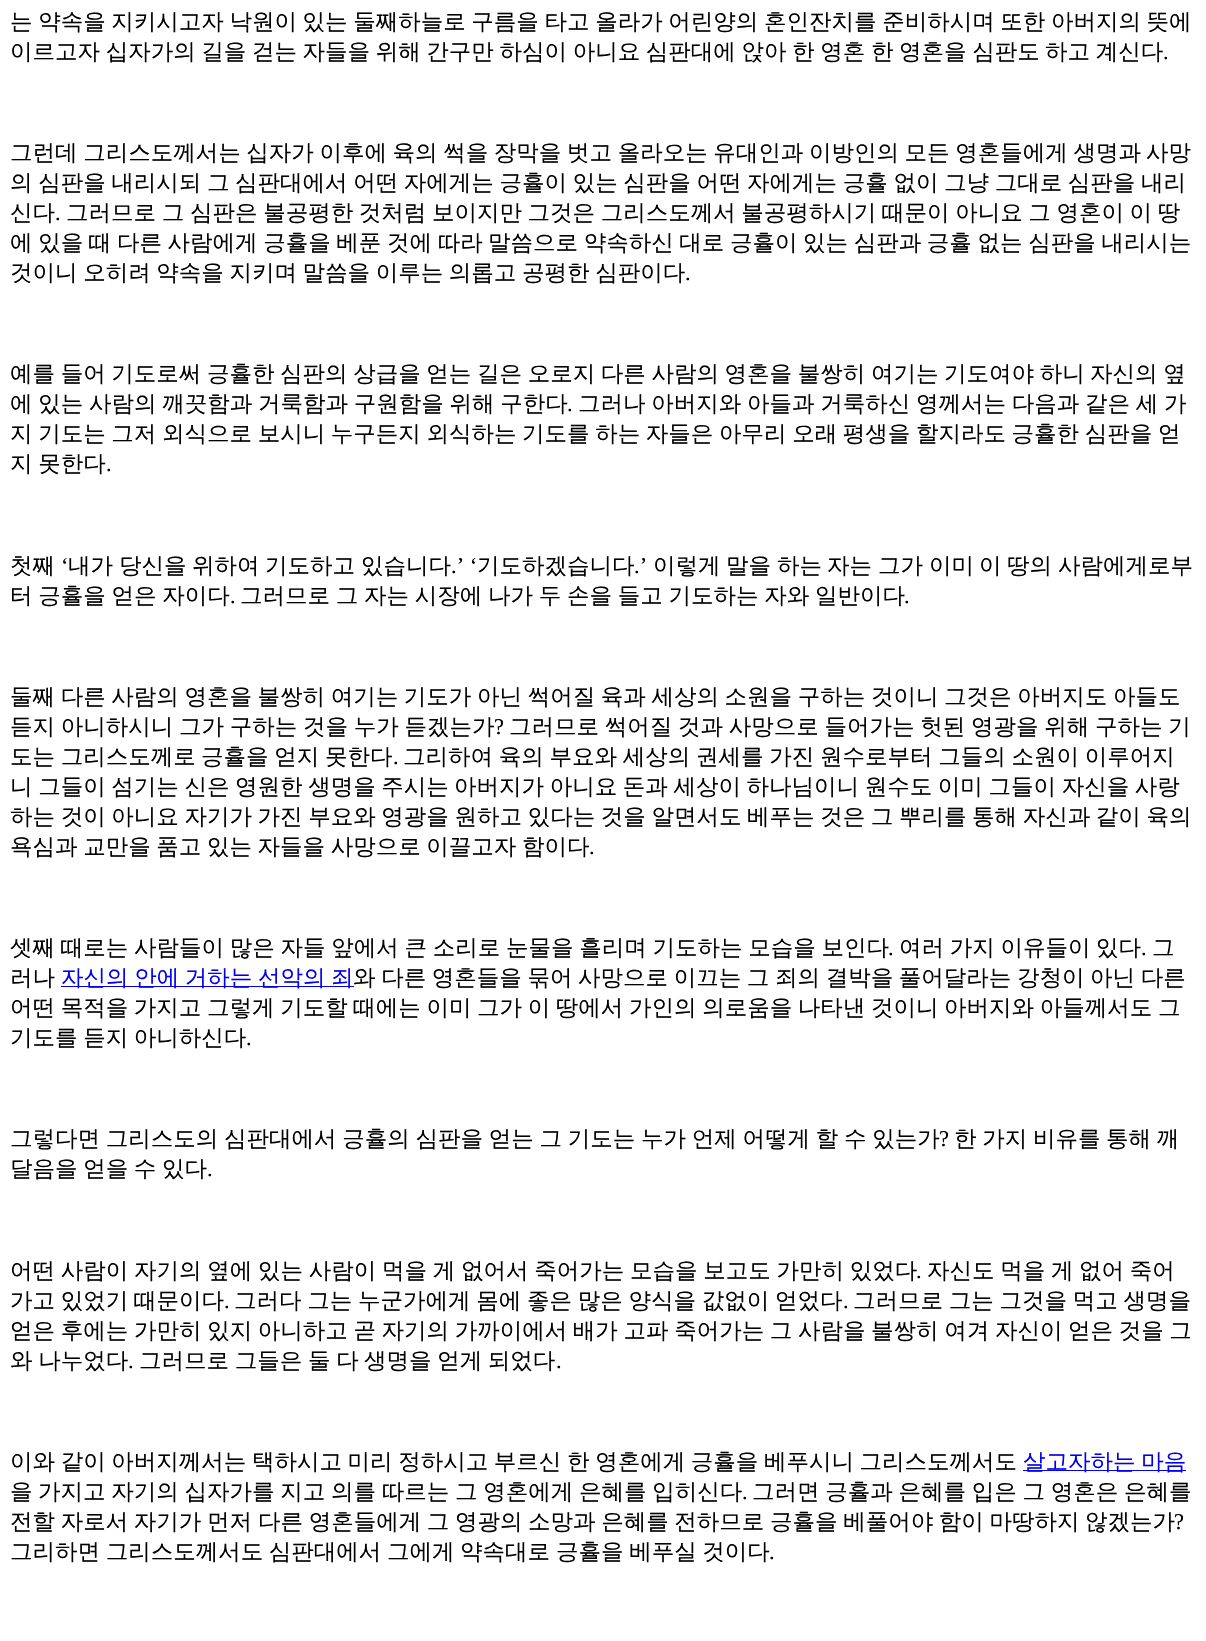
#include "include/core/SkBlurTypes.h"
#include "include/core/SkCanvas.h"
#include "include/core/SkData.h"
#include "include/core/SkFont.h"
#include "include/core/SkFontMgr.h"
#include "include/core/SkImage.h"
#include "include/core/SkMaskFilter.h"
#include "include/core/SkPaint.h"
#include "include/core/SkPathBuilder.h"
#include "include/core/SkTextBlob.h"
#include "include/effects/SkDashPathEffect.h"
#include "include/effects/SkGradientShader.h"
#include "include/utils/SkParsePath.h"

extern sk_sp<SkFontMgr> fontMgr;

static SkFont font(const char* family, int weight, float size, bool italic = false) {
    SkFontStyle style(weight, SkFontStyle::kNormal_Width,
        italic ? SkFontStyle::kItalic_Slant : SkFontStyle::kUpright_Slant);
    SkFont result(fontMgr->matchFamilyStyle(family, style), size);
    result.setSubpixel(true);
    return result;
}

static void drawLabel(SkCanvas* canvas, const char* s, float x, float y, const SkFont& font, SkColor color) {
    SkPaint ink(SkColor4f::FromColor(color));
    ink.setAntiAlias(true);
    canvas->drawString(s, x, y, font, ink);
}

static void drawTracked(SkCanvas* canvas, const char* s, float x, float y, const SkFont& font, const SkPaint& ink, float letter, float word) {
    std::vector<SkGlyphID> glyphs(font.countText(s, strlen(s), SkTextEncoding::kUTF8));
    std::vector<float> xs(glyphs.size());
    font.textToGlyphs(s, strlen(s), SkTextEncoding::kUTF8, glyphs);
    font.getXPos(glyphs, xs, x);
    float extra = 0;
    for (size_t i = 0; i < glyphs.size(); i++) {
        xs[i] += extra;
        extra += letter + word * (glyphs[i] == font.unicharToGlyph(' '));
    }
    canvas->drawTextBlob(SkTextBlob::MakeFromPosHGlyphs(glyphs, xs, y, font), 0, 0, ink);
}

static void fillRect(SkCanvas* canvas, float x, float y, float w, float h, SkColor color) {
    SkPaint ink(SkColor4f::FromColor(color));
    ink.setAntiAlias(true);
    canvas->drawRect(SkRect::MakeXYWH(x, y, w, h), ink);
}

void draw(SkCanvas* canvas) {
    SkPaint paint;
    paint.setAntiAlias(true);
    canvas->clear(0xFFFFFFFF);
    SkFont font1 = font("WenQuanYi Zen Hei", 500, 22.5f);
    paint.setColor(0xFF000000);
    drawTracked(canvas, "는 약속을 지키시고자 낙원이 있는 둘째하늘로 구름을 타고 올라가 어린양의", 10, 29, font1, paint, 0, -1.1f);
    drawTracked(canvas, "혼인잔치를 준비하시며 또한 아버지의 뜻에", 764, 29, font1, paint, 0, -1.1f);
    drawTracked(canvas, "이르고자 십자가의 길을 걷는 자들을 위해 간구만 하심이 아니요 심판대에 앉아 한 영혼 한 영혼을 심판도", 10, 59, font1, paint, 0, -1.1f);
    drawTracked(canvas, "하고 계신다", 1045, 59, font1, paint, 0, -1.1f);
    SkFont font2 = font("Liberation Serif", 400, 22.5f);
    drawLabel(canvas, ".", 1163, 59, font2, 0xFF000000);
    drawTracked(canvas, "그런데 그리스도께서는 십자가 이후에 육의 썩을 장막을 벗고 올라오는 유대인과 이방인의 모든 영혼들에게 생명과", 10, 160, font1, paint, 0, -1.1f);
    drawLabel(canvas, "사망", 1146, 160, font1, 0xFF000000);
    drawTracked(canvas, "의 심판을 내리시되 그 심판대에서 어떤 자에게는 긍휼이 있는 심판을 어떤 자에게는 긍휼 없이 그냥 그대로 심판을 내리", 10, 190, font1, paint, 0, -1.1f);
    drawLabel(canvas, "신다", 10, 220, font1, 0xFF000000);
    drawLabel(canvas, ".", 55, 220, font2, 0xFF000000);
    drawTracked(canvas, "그러므로 그", 66, 220, font1, paint, 0, -1);
    drawTracked(canvas, "심판은 불공평한 것처럼 보이지만 그것은 그리스도께서 불공평하시기 때문이 아니요 그 영혼이 이 땅", 190, 220, font1, paint, 0, -1.1f);
    drawTracked(canvas, "에 있을 때 다른 사람에게 긍휼을 베푼 것에 따라", 10, 250, font1, paint, 0, -1.1f);
    drawTracked(canvas, "말씀으로 약속하신 대로 긍휼이 있는 심판과 긍휼 없는 심판을 내리시는", 488, 250, font1, paint, 0, -1.1f);
    drawTracked(canvas, "것이니 오히려 약속을 지키며 말씀을 이루는 의롭고 공평한 심판이다", 10, 280, font1, paint, 0, -1.1f);
    drawLabel(canvas, ".", 685, 280, font2, 0xFF000000);
    drawTracked(canvas, "예를 들어 기도로써 긍휼한 심판의 상급을 얻는 길은 오로지 다른 사람의 영혼을 불쌍히 여기는 기도여야 하니", 10, 381, font1, paint, 0, -1.1f);
    drawTracked(canvas, "자신의 옆", 1090, 381, font1, paint, 0, -1.1f);
    drawTracked(canvas, "에 있는 사람의 깨끗함과 거룩함과 구원함을 위해 구한다", 10, 411, font1, paint, 0, -1);
    drawLabel(canvas, ".", 567, 411, font2, 0xFF000000);
    drawTracked(canvas, "그러나 아버지와 아들과 거룩하신 영께서는 다음과 같은 세 가", 578, 411, font1, paint, 0, -1);
    drawTracked(canvas, "지 기도는 그저", 10, 441, font1, paint, 0, -1.1f);
    drawTracked(canvas, "외식으로 보시니 누구든지 외식하는 기도를 하는 자들은 아무리 오래 평생을 할지라도 긍휼한 심판을 얻", 162, 441, font1, paint, 0, -1.1f);
    drawTracked(canvas, "지 못한다", 10, 471, font1, paint, 0, -1.1f);
    drawLabel(canvas, ".", 106, 471, font2, 0xFF000000);
    drawLabel(canvas, "첫째", 10, 573, font1, 0xFF000000);
    drawLabel(canvas, "‘", 61, 573, font2, 0xFF000000);
    drawLabel(canvas, "내가", 68, 573, font1, 0xFF000000);
    drawLabel(canvas, "당신을", 119, 573, font1, 0xFF000000);
    drawLabel(canvas, "위하여", 192, 573, font1, 0xFF000000);
    drawLabel(canvas, "기도하고", 265, 573, font1, 0xFF000000);
    drawLabel(canvas, "있습니다", 361, 573, font1, 0xFF000000);
    drawLabel(canvas, ".’ ‘", 451, 573, font2, 0xFF000000);
    drawLabel(canvas, "기도하겠습니다", 477, 573, font1, 0xFF000000);
    drawLabel(canvas, ".’", 634, 573, font2, 0xFF000000);
    drawLabel(canvas, "이렇게", 653, 573, font1, 0xFF000000);
    drawLabel(canvas, "말을", 726, 573, font1, 0xFF000000);
    drawLabel(canvas, "하는", 777, 573, font1, 0xFF000000);
    drawLabel(canvas, "자는", 827, 573, font1, 0xFF000000);
    drawLabel(canvas, "그가", 878, 573, font1, 0xFF000000);
    drawLabel(canvas, "이미", 929, 573, font1, 0xFF000000);
    drawLabel(canvas, "이", 979, 573, font1, 0xFF000000);
    drawLabel(canvas, "땅의", 1007, 573, font1, 0xFF000000);
    drawLabel(canvas, "사람에게로부", 1058, 573, font1, 0xFF000000);
    drawTracked(canvas, "터 긍휼을 얻은 자이다", 10, 603, font1, paint, 0, -1);
    drawLabel(canvas, ".", 230, 603, font2, 0xFF000000);
    drawTracked(canvas, "그러므로 그 자는 시장에 나가 두 손을 들고 기도하는 자와 일반이다", 240, 603, font1, paint, 0, -1);
    drawLabel(canvas, ".", 904, 603, font2, 0xFF000000);
    drawTracked(canvas, "둘째 다른 사람의 영혼을 불쌍히 여기는 기도가 아닌 썩어질 육과 세상의 소원을 구하는 것이니 그것은 아버지도", 10, 704, font1, paint, 0, -1.1f);
    drawLabel(canvas, "아들도", 1113, 704, font1, 0xFF000000);
    drawTracked(canvas, "듣지 아니하시니 그가 구하는 것을 누가 듣겠는가", 10, 734, font1, paint, 0, -1);
    drawLabel(canvas, "?", 494, 734, font2, 0xFF000000);
    drawTracked(canvas, "그러므로 썩어질 것과 사망으로 들어가는 헛된 영광을 위해 구하는 기", 509, 734, font1, paint, 0, -1);
    drawTracked(canvas, "도는 그리스도께로", 10, 764, font1, paint, 0, -1.1f);
    drawTracked(canvas, "긍휼을 얻지 못한다", 201, 764, font1, paint, 0, -1);
    drawLabel(canvas, ".", 393, 764, font2, 0xFF000000);
    drawTracked(canvas, "그리하여 육의 부요와 세상의 권세를 가진 원수로부터 그들의 소원이 이루어지", 403, 764, font1, paint, 0, -1);
    drawTracked(canvas, "니 그들이 섬기는 신은 영원한 생명을 주시는", 10, 794, font1, paint, 0, -1.1f);
    drawTracked(canvas, "아버지가 아니요 돈과 세상이 하나님이니 원수도 이미 그들이 자신을 사랑", 454, 794, font1, paint, 0, -1.1f);
    drawTracked(canvas, "하는 것이 아니요 자기가 가진 부요와 영광을 원하고 있다는 것을 알면서도", 10, 824, font1, paint, 0, -1.1f);
    drawTracked(canvas, "베푸는 것은 그 뿌리를 통해 자신과 같이 육의", 747, 824, font1, paint, 0, -1.1f);
    drawTracked(canvas, "욕심과 교만을 품고 있는 자들을 사망으로 이끌고자 함이다", 10, 854, font1, paint, 0, -1.1f);
    drawLabel(canvas, ".", 589, 854, font2, 0xFF000000);
    drawTracked(canvas, "셋째 때로는 사람들이 많은 자들 앞에서 큰 소리로 눈물을 흘리며 기도하는 모습을 보인다", 10, 955, font1, paint, 0, -1);
    drawLabel(canvas, ".", 888, 955, font2, 0xFF000000);
    drawTracked(canvas, "여러 가지 이유들이", 899, 955, font1, paint, 0, -1);
    drawLabel(canvas, "있다", 1096, 955, font1, 0xFF000000);
    drawLabel(canvas, ".", 1141, 955, font2, 0xFF000000);
    drawLabel(canvas, "그", 1152, 955, font1, 0xFF000000);
    drawLabel(canvas, "러나", 10, 985, font1, 0xFF000000);
    fillRect(canvas, 61, 986, 293, 1, 0xFF0000EE);
    paint.setColor(0xFF0000EE);
    drawTracked(canvas, "자신의 안에 거하는 선악의 죄", 61, 985, font1, paint, 0, -1.1f);
    paint.setColor(0xFF000000);
    drawTracked(canvas, "와 다른 영혼들을 묶어 사망으로 이끄는 그 죄의 결박을 풀어달라는 강청이 아닌 다른", 353, 985, font1, paint, 0, -1.1f);
    drawTracked(canvas, "어떤 목적을 가지고", 10, 1015, font1, paint, 0, -1.1f);
    drawTracked(canvas, "그렇게 기도할 때에는 이미 그가 이 땅에서 가인의 의로움을 나타낸 것이니 아버지와 아들께서도 그", 207, 1015, font1, paint, 0, -1.1f);
    drawTracked(canvas, "기도를 듣지 아니하신다", 10, 1045, font1, paint, 0, -1.1f);
    drawLabel(canvas, ".", 246, 1045, font2, 0xFF000000);
    drawTracked(canvas, "그렇다면 그리스도의 심판대에서 긍휼의 심판을 얻는 그 기도는 누가 언제 어떻게 할 수 있는가", 10, 1146, font1, paint, 0, -1);
    drawLabel(canvas, "?", 939, 1146, font2, 0xFF000000);
    drawTracked(canvas, "한 가지 비유를", 954, 1146, font1, paint, 0, -1);
    drawTracked(canvas, "통해 깨", 1106, 1146, font1, paint, 0, -1.1f);
    drawTracked(canvas, "달음을 얻을 수 있다", 10, 1176, font1, paint, 0, -1.1f);
    drawLabel(canvas, ".", 207, 1176, font2, 0xFF000000);
    drawTracked(canvas, "어떤 사람이 자기의 옆에 있는 사람이 먹을 게 없어서 죽어가는 모습을 보고도 가만히 있었다", 10, 1278, font1, paint, 0, -1);
    drawLabel(canvas, ".", 916, 1278, font2, 0xFF000000);
    drawTracked(canvas, "자신도 먹을 게", 927, 1278, font1, paint, 0, -1);
    drawTracked(canvas, "없어 죽어", 1079, 1278, font1, paint, 0, -1.1f);
    drawTracked(canvas, "가고 있었기 때문이다", 10, 1308, font1, paint, 0, -1);
    drawLabel(canvas, ".", 224, 1308, font2, 0xFF000000);
    drawTracked(canvas, "그러다 그는 누군가에게 몸에 좋은 많은 양식을 값없이 얻었다", 234, 1308, font1, paint, 0, -1);
    drawLabel(canvas, ".", 843, 1308, font2, 0xFF000000);
    drawTracked(canvas, "그러므로 그는 그것을 먹고 생명을", 853, 1308, font1, paint, 0, -1);
    drawTracked(canvas, "얻은 후에는", 10, 1338, font1, paint, 0, -1.1f);
    drawTracked(canvas, "가만히 있지 아니하고 곧 자기의 가까이에서 배가 고파 죽어가는 그 사람을 불쌍히 여겨 자신이 얻은 것을 그", 134, 1338, font1, paint, 0, -1.1f);
    drawTracked(canvas, "와 나누었다", 10, 1368, font1, paint, 0, -1);
    drawLabel(canvas, ".", 128, 1368, font2, 0xFF000000);
    drawTracked(canvas, "그러므로 그들은 둘 다", 139, 1368, font1, paint, 0, -1);
    drawTracked(canvas, "생명을 얻게 되었다", 364, 1368, font1, paint, 0, -1.1f);
    drawLabel(canvas, ".", 556, 1368, font2, 0xFF000000);
    drawTracked(canvas, "이와 같이 아버지께서는 택하시고 미리 정하시고 부르신 한 영혼에게 긍휼을 베푸시니 그리스도께서도", 10, 1469, font1, paint, 0, -1.1f);
    fillRect(canvas, 1023, 1470, 163, 1, 0xFF0000EE);
    paint.setColor(0xFF0000EE);
    drawTracked(canvas, "살고자하는 마음", 1023, 1469, font1, paint, 0, -1.1f);
    drawLabel(canvas, "을", 10, 1499, font1, 0xFF000000);
    paint.setColor(0xFF000000);
    drawTracked(canvas, "가지고 자기의 십자가를 지고 의를 따르는 그 영혼에게 은혜를 입히신다", 38, 1499, font1, paint, 0, -1);
    drawLabel(canvas, ".", 742, 1499, font2, 0xFF000000);
    drawTracked(canvas, "그러면 긍휼과 은혜를 입은 그 영혼은 은혜를", 752, 1499, font1, paint, 0, -1);
    drawTracked(canvas, "전할 자로서 자기가 먼저", 10, 1529, font1, paint, 0, -1.1f);
    drawTracked(canvas, "다른 영혼들에게 그 영광의 소망과 은혜를 전하므로 긍휼을 베풀어야 함이 마땅하지 않겠는가", 258, 1529, font1, paint, 0, -1.1f);
    drawLabel(canvas, "?", 1174, 1529, font2, 0xFF000000);
    drawTracked(canvas, "그리하면 그리스도께서도 심판대에서 그에게 약속대로", 10, 1559, font1, paint, 0, -1.1f);
    drawTracked(canvas, "긍휼을 베푸실 것이다", 556, 1559, font1, paint, 0, -1.1f);
    drawLabel(canvas, ".", 769, 1559, font2, 0xFF000000);
}
